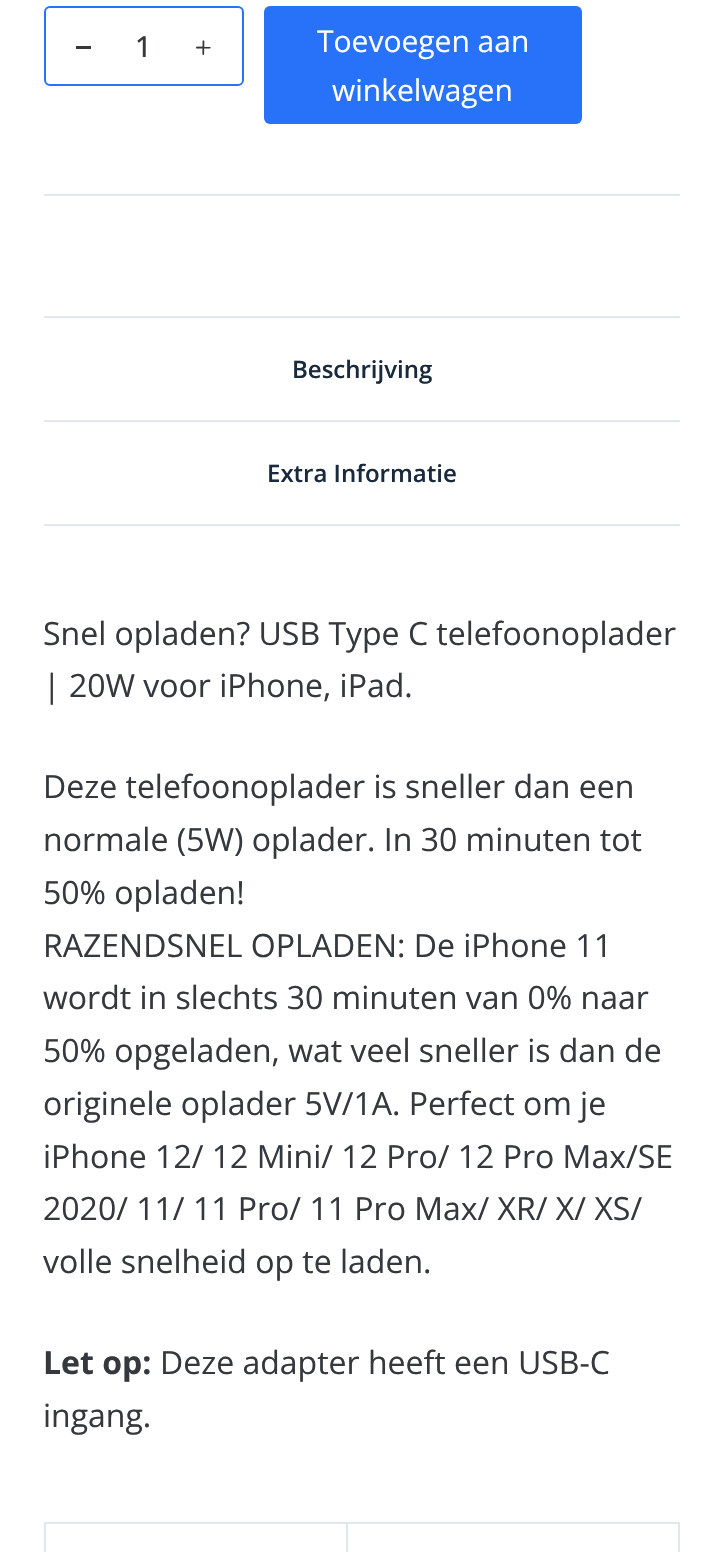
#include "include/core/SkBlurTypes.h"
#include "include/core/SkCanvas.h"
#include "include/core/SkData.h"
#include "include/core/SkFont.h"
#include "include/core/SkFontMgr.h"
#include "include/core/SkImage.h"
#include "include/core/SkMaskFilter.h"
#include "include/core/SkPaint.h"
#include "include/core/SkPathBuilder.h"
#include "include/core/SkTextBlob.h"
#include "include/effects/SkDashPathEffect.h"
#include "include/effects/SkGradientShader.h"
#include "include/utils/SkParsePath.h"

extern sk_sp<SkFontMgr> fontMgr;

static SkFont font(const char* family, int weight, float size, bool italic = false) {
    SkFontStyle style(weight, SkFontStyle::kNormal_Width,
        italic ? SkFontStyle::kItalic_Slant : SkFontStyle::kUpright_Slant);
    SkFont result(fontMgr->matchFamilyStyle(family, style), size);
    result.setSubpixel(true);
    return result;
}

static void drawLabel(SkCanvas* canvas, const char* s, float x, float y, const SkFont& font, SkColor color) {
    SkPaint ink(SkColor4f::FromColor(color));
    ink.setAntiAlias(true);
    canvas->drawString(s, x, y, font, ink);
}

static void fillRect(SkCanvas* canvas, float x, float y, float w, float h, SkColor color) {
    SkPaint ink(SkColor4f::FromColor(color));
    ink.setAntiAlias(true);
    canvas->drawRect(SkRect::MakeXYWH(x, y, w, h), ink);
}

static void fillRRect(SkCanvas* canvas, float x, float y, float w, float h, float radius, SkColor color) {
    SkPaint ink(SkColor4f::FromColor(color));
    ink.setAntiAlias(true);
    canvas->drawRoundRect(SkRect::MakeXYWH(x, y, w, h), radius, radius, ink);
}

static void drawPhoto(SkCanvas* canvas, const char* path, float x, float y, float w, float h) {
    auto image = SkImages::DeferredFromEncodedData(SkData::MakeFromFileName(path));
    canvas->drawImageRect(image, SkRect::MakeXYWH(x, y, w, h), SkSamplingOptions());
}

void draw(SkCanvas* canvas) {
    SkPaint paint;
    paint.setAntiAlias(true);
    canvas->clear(0xFFFFFFFF);
    paint.setStroke(true);
    paint.setStrokeWidth(2);
    paint.setColor(0xFF2872FA);
    canvas->drawRoundRect(SkRect::MakeXYWH(45, 7, 198, 78), 5, 5, paint);
    fillRect(canvas, 76, 46, 15, 3, 0xFF35383C);
    SkFont font1 = font("Open Sans", 500, 29);
    drawLabel(canvas, "1", 135, 57, font1, 0xFF35383C);
    drawPhoto(canvas, "assets/img1.png", 196, 40, 15, 15);
    fillRRect(canvas, 264, 6, 318, 118, 6, 0xFF2872FA);
    SkFont font2 = font("Open Sans", 400, 30);
    drawLabel(canvas, "Toevoegen aan", 317, 52, font2, 0xFFFFFFFF);
    drawLabel(canvas, "winkelwagen", 332, 101, font2, 0xFFFFFFFF);
    fillRect(canvas, 44, 194, 636, 2, 0xFFE1E8ED);
    fillRect(canvas, 44, 524, 636, 2, 0xFFE1E8ED);
    fillRect(canvas, 44, 316, 636, 2, 0xFFE1E8ED);
    SkFont font3 = font("Open Sans", 600, 24);
    drawLabel(canvas, "Beschrijving", 292, 378, font3, 0xFF192A3D);
    fillRect(canvas, 44, 420, 636, 2, 0xFFE1E8ED);
    drawLabel(canvas, "Extra Informatie", 267, 482, font3, 0xFF192A3D);
    SkFont font4 = font("Open Sans", 400, 32);
    drawLabel(canvas, "Snel opladen? USB Type C telefoonoplader", 43, 645, font4, 0xFF35383C);
    drawLabel(canvas, "| 20W voor iPhone, iPad.", 43, 697, font4, 0xFF35383C);
    drawLabel(canvas, "Deze telefoonoplader is sneller dan een", 43, 798, font4, 0xFF35383C);
    drawLabel(canvas, "normale (5W) oplader. In 30 minuten tot", 43, 851, font4, 0xFF35383C);
    drawLabel(canvas, "50% opladen!", 43, 904, font4, 0xFF35383C);
    drawLabel(canvas, "RAZENDSNEL OPLADEN: De iPhone 11", 43, 957, font4, 0xFF35383C);
    drawLabel(canvas, "wordt in slechts 30 minuten van 0% naar", 43, 1009, font4, 0xFF35383C);
    drawLabel(canvas, "50% opgeladen, wat veel sneller is dan de", 43, 1062, font4, 0xFF35383C);
    drawLabel(canvas, "originele oplader 5V/1A. Perfect om je", 43, 1115, font4, 0xFF35383C);
    drawLabel(canvas, "iPhone 12/ 12 Mini/ 12 Pro/ 12 Pro Max/SE", 43, 1168, font4, 0xFF35383C);
    drawLabel(canvas, "2020/ 11/ 11 Pro/ 11 Pro Max/ XR/ X/ XS/", 43, 1220, font4, 0xFF35383C);
    drawLabel(canvas, "volle snelheid op te laden.", 43, 1273, font4, 0xFF35383C);
    SkFont font5 = font("Open Sans", 700, 32);
    drawLabel(canvas, "Let op:", 43, 1374, font5, 0xFF35383C);
    drawLabel(canvas, "Deze adapter heeft een USB-C", 160, 1374, font4, 0xFF35383C);
    drawLabel(canvas, "ingang.", 43, 1427, font4, 0xFF35383C);
    fillRect(canvas, 44, 1522, 636, 2, 0xFFE1E8ED);
    fillRect(canvas, 678, 1522, 2, 30, 0xFFE1E8ED);
    fillRect(canvas, 44, 1522, 2, 30, 0xFFE1E8ED);
    fillRect(canvas, 346, 1522, 2, 30, 0xFFE1E8ED);
}
